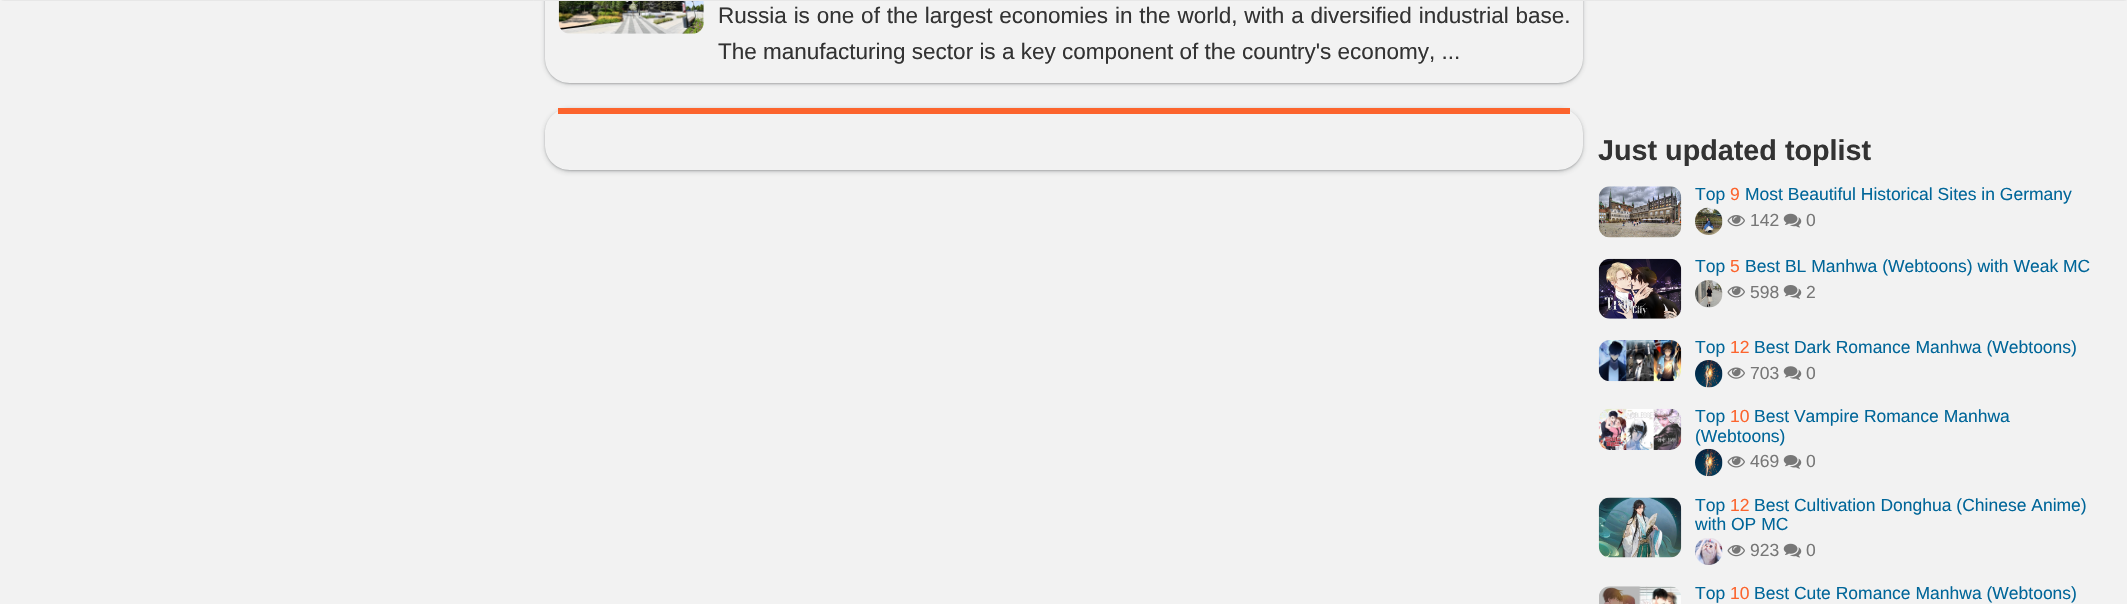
#include "include/core/SkBlurTypes.h"
#include "include/core/SkCanvas.h"
#include "include/core/SkData.h"
#include "include/core/SkFont.h"
#include "include/core/SkFontMgr.h"
#include "include/core/SkImage.h"
#include "include/core/SkMaskFilter.h"
#include "include/core/SkPaint.h"
#include "include/core/SkPathBuilder.h"
#include "include/core/SkTextBlob.h"
#include "include/effects/SkDashPathEffect.h"
#include "include/effects/SkGradientShader.h"
#include "include/utils/SkParsePath.h"

extern sk_sp<SkFontMgr> fontMgr;

static SkFont font(const char* family, int weight, float size, bool italic = false) {
    SkFontStyle style(weight, SkFontStyle::kNormal_Width,
        italic ? SkFontStyle::kItalic_Slant : SkFontStyle::kUpright_Slant);
    SkFont result(fontMgr->matchFamilyStyle(family, style), size);
    result.setSubpixel(true);
    return result;
}

static void drawLabel(SkCanvas* canvas, const char* s, float x, float y, const SkFont& font, SkColor color) {
    SkPaint ink(SkColor4f::FromColor(color));
    ink.setAntiAlias(true);
    canvas->drawString(s, x, y, font, ink);
}

static void drawTracked(SkCanvas* canvas, const char* s, float x, float y, const SkFont& font, const SkPaint& ink, float letter, float word) {
    std::vector<SkGlyphID> glyphs(font.countText(s, strlen(s), SkTextEncoding::kUTF8));
    std::vector<float> xs(glyphs.size());
    font.textToGlyphs(s, strlen(s), SkTextEncoding::kUTF8, glyphs);
    font.getXPos(glyphs, xs, x);
    float extra = 0;
    for (size_t i = 0; i < glyphs.size(); i++) {
        xs[i] += extra;
        extra += letter + word * (glyphs[i] == font.unicharToGlyph(' '));
    }
    canvas->drawTextBlob(SkTextBlob::MakeFromPosHGlyphs(glyphs, xs, y, font), 0, 0, ink);
}

static void fillRect(SkCanvas* canvas, float x, float y, float w, float h, SkColor color) {
    SkPaint ink(SkColor4f::FromColor(color));
    ink.setAntiAlias(true);
    canvas->drawRect(SkRect::MakeXYWH(x, y, w, h), ink);
}

static void drawPhoto(SkCanvas* canvas, const char* path, float x, float y, float w, float h) {
    auto image = SkImages::DeferredFromEncodedData(SkData::MakeFromFileName(path));
    canvas->drawImageRect(image, SkRect::MakeXYWH(x, y, w, h), SkSamplingOptions());
}

static SkPath parsePath(const char* data, bool evenOdd = false) {
    SkPath result = *SkParsePath::FromSVGString(data);
    if (evenOdd) result.setFillType(SkPathFillType::kEvenOdd);
    return result;
}

void draw(SkCanvas* canvas) {
    SkPaint paint;
    paint.setAntiAlias(true);
    canvas->clear(0xFFF2F2F2);
    canvas->save();
    canvas->clipPath(parsePath("M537 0H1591V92H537ZM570-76H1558C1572-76 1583-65 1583-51V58C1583 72 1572 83 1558 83H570C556 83 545 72 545 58V-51C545-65 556-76 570-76Z", true), true);
    paint.setColor(0x263C4043);
    paint.setMaskFilter(SkMaskFilter::MakeBlur(kNormal_SkBlurStyle, 2));
    canvas->drawRoundRect(SkRect::MakeXYWH(544, -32, 1040, 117), 26, 26, paint);
    paint.setMaskFilter(nullptr);
    canvas->restore();
    canvas->save();
    canvas->clipPath(parsePath("M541 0H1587V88H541ZM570-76H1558C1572-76 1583-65 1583-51V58C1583 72 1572 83 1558 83H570C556 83 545 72 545 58V-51C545-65 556-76 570-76Z", true), true);
    paint.setColor(0x4D3C4043);
    paint.setMaskFilter(SkMaskFilter::MakeBlur(kNormal_SkBlurStyle, 1));
    canvas->drawRoundRect(SkRect::MakeXYWH(545, -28, 1038, 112), 25, 25, paint);
    paint.setMaskFilter(nullptr);
    canvas->restore();
    paint.setStroke(true);
    paint.setStrokeWidth(1);
    paint.setColor(0xFFE7E7E7);
    canvas->drawRoundRect(SkRect::MakeXYWH(0.5f, -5.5f, 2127, 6), 4.5f, 4.5f, paint);
    drawPhoto(canvas, "assets/img1.png", 558, 1, 146, 33);
    SkFont font1 = font("Liberation Sans", 400, 22.5f);
    paint.setStroke(false);
    paint.setColor(0xFF333333);
    drawTracked(canvas, "Russia is one of the largest economies in the world, with a diversified industrial base.", 718, 23, font1, paint, 0, 0.6f);
    drawLabel(canvas, "The manufacturing sector is a key component of the country's economy, ...", 718, 59, font1, 0xFF333333);
    canvas->save();
    canvas->clipPath(parsePath("M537 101H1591V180H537ZM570 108H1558C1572 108 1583 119 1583 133V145C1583 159 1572 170 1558 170H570C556 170 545 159 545 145V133C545 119 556 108 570 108Z", true), true);
    paint.setColor(0x263C4043);
    paint.setMaskFilter(SkMaskFilter::MakeBlur(kNormal_SkBlurStyle, 2));
    canvas->drawRoundRect(SkRect::MakeXYWH(544, 108, 1040, 65), 26, 26, paint);
    paint.setMaskFilter(nullptr);
    canvas->restore();
    canvas->save();
    canvas->clipPath(parsePath("M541 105H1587V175H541ZM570 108H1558C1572 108 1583 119 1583 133V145C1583 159 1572 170 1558 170H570C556 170 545 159 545 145V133C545 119 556 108 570 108Z", true), true);
    paint.setColor(0x4D3C4043);
    paint.setMaskFilter(SkMaskFilter::MakeBlur(kNormal_SkBlurStyle, 1));
    canvas->drawRoundRect(SkRect::MakeXYWH(545, 109, 1038, 62), 25, 25, paint);
    paint.setMaskFilter(nullptr);
    canvas->restore();
    fillRect(canvas, 558, 108, 1012, 6, 0xFFFC642D);
    SkFont font2 = font("Liberation Sans", 700, 28.75f);
    drawLabel(canvas, "Just updated toplist", 1598, 160, font2, 0xFF333333);
    drawPhoto(canvas, "assets/img2.png", 1598, 186, 84, 52);
    SkFont font3 = font("Liberation Sans", 400, 17.5f);
    drawLabel(canvas, "Top", 1695, 200, font3, 0xFF006699);
    drawLabel(canvas, "9", 1730, 200, font3, 0xFFFC642D);
    drawLabel(canvas, "Most Beautiful Historical Sites in Germany", 1745, 200, font3, 0xFF006699);
    drawPhoto(canvas, "assets/img3.png", 1695, 207, 28, 28);
    drawPhoto(canvas, "assets/img4.png", 1727, 215, 18, 12);
    drawLabel(canvas, "142", 1750, 226, font3, 0xFF777777);
    drawPhoto(canvas, "assets/img5.png", 1783, 213, 19, 15);
    drawLabel(canvas, "0", 1806, 226, font3, 0xFF777777);
    drawPhoto(canvas, "assets/img6.png", 1598, 258, 84, 61);
    drawLabel(canvas, "Top", 1695, 272, font3, 0xFF006699);
    drawLabel(canvas, "5", 1730, 272, font3, 0xFFFC642D);
    drawLabel(canvas, "Best BL Manhwa (Webtoons) with Weak MC", 1745, 272, font3, 0xFF006699);
    drawPhoto(canvas, "assets/img7.png", 1695, 280, 28, 28);
    drawPhoto(canvas, "assets/img8.png", 1727, 286, 18, 12);
    drawLabel(canvas, "598", 1750, 298, font3, 0xFF777777);
    drawPhoto(canvas, "assets/img9.png", 1783, 285, 19, 14);
    drawLabel(canvas, "2", 1806, 298, font3, 0xFF777777);
    drawPhoto(canvas, "assets/img10.png", 1598, 340, 84, 42);
    drawLabel(canvas, "Top", 1695, 353, font3, 0xFF006699);
    drawLabel(canvas, "12", 1730, 353, font3, 0xFFFC642D);
    drawLabel(canvas, "Best Dark Romance Manhwa (Webtoons)", 1754, 353, font3, 0xFF006699);
    drawPhoto(canvas, "assets/img11.png", 1695, 360, 28, 28);
    drawPhoto(canvas, "assets/img12.png", 1727, 367, 18, 12);
    drawLabel(canvas, "703", 1750, 379, font3, 0xFF777777);
    drawPhoto(canvas, "assets/img13.png", 1783, 366, 19, 14);
    drawLabel(canvas, "0", 1806, 379, font3, 0xFF777777);
    drawPhoto(canvas, "assets/img14.png", 1598, 408, 84, 42);
    drawLabel(canvas, "Top", 1695, 422, font3, 0xFF006699);
    drawLabel(canvas, "10", 1730, 422, font3, 0xFFFC642D);
    drawLabel(canvas, "Best Vampire Romance Manhwa", 1754, 422, font3, 0xFF006699);
    drawLabel(canvas, "(Webtoons)", 1695, 442, font3, 0xFF006699);
    drawPhoto(canvas, "assets/img15.png", 1695, 448, 28, 29);
    drawPhoto(canvas, "assets/img8.png", 1727, 456, 18, 12);
    drawLabel(canvas, "469", 1750, 467, font3, 0xFF777777);
    drawPhoto(canvas, "assets/img9.png", 1783, 455, 19, 14);
    drawLabel(canvas, "0", 1806, 467, font3, 0xFF777777);
    drawPhoto(canvas, "assets/img16.png", 1598, 497, 84, 61);
    drawLabel(canvas, "Top", 1695, 511, font3, 0xFF006699);
    drawLabel(canvas, "12", 1730, 511, font3, 0xFFFC642D);
    drawLabel(canvas, "Best Cultivation Donghua (Chinese Anime)", 1754, 511, font3, 0xFF006699);
    drawLabel(canvas, "with OP MC", 1695, 530, font3, 0xFF006699);
    drawPhoto(canvas, "assets/img17.png", 1695, 538, 28, 27);
    drawPhoto(canvas, "assets/img4.png", 1727, 545, 18, 12);
    drawLabel(canvas, "923", 1750, 556, font3, 0xFF777777);
    drawPhoto(canvas, "assets/img5.png", 1783, 543, 19, 15);
    drawLabel(canvas, "0", 1806, 556, font3, 0xFF777777);
    drawPhoto(canvas, "assets/img18.png", 1599, 586, 82, 18);
    drawLabel(canvas, "Top", 1695, 599, font3, 0xFF006699);
    drawLabel(canvas, "10", 1730, 599, font3, 0xFFFC642D);
    drawLabel(canvas, "Best Cute Romance Manhwa (Webtoons)", 1754, 599, font3, 0xFF006699);
}
